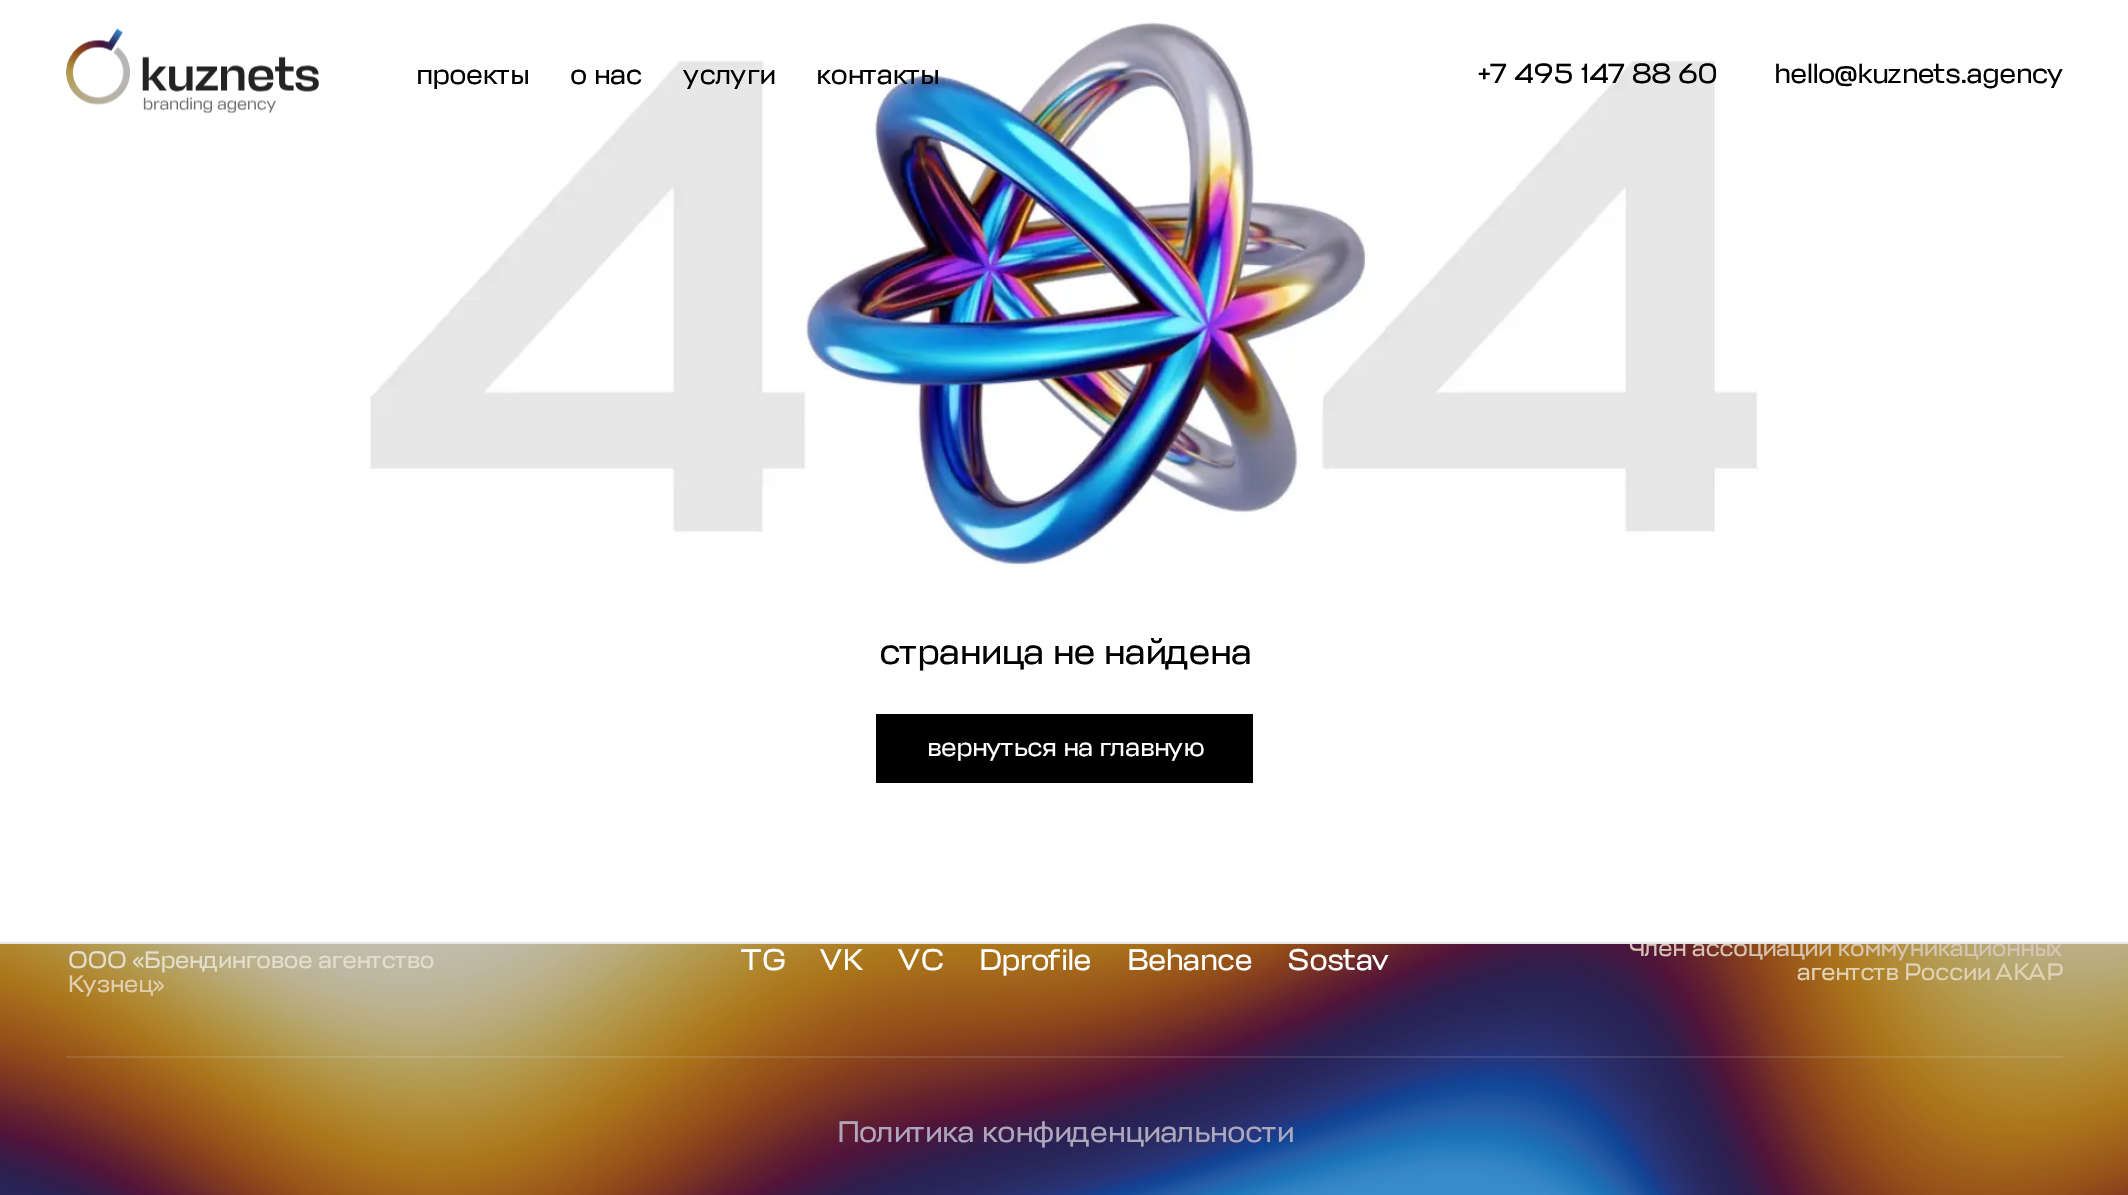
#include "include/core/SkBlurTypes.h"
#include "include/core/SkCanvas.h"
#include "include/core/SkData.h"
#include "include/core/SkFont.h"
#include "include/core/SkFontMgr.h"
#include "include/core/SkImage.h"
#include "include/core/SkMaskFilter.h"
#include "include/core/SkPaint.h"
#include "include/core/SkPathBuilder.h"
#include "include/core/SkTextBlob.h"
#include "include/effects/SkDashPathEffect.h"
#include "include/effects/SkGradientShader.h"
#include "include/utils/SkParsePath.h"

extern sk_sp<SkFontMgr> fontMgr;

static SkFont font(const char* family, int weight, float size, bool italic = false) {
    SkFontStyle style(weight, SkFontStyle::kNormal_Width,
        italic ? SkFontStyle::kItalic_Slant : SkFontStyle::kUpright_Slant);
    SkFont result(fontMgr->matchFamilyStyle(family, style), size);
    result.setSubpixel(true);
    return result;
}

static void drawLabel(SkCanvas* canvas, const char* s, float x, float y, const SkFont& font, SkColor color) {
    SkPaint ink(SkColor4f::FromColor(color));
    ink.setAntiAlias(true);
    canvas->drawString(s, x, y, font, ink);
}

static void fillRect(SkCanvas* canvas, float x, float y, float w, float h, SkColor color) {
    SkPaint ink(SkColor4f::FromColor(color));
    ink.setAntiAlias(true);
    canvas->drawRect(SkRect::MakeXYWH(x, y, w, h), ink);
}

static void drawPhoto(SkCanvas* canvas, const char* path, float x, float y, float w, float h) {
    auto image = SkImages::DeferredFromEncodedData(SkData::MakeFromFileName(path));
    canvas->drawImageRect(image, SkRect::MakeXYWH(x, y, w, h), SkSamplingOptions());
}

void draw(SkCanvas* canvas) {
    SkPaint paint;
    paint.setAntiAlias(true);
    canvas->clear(0xFFFFFFFF);
    drawPhoto(canvas, "assets/img1.png", 66, 28, 253, 85);
    drawPhoto(canvas, "assets/img2.png", 370, 21, 1388, 546);
    SkFont font1 = font("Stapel", 400, 28);
    drawLabel(canvas, "проекты", 415, 84, font1, 0xFF000000);
    drawLabel(canvas, "о нас", 569, 84, font1, 0xFF000000);
    drawLabel(canvas, "услуги", 683, 84, font1, 0xFF000000);
    drawLabel(canvas, "контакты", 815, 84, font1, 0xFF000000);
    drawLabel(canvas, "+7 495 147 88 60", 1474, 83, font1, 0xFF000000);
    drawLabel(canvas, "hello@kuznets.agency", 1773, 83, font1, 0xFF000000);
    drawPhoto(canvas, "assets/img3.png", 0, 944, 2128, 251);
    SkFont font2 = font("Stapel", 400, 24);
    drawLabel(canvas, "Член ассоциации коммуникационных", 1628, 956, font2, 0xFFD7C5B3);
    fillRect(canvas, 1629, 939, 15, 3, 0xFFFFFFFF);
    fillRect(canvas, 0, 942, 2128, 2, 0xFFE6E6E6);
    SkFont font3 = font("Stapel", 400, 36.25f);
    drawLabel(canvas, "страница не найдена", 878, 664, font3, 0xFF000000);
    fillRect(canvas, 876, 714, 377, 69, 0xFF000000);
    SkFont font4 = font("Stapel", 400, 26);
    drawLabel(canvas, "вернуться на главную", 926, 756, font4, 0xFFFFFFFF);
    drawLabel(canvas, "ООО «Брендинговое агентство", 67, 968, font2, 0xFFE3DDCC);
    drawLabel(canvas, "Кузнец»", 67, 992, font2, 0xFFE0D0AF);
    SkFont font5 = font("Stapel", 400, 30);
    drawLabel(canvas, "TG", 740, 970, font5, 0xFFFFFFFF);
    drawLabel(canvas, "VK", 820, 970, font5, 0xFFFFFFFF);
    drawLabel(canvas, "VC", 898, 970, font5, 0xFFFFFFFF);
    drawLabel(canvas, "Dprofile", 978, 970, font5, 0xFFFFFFFF);
    drawLabel(canvas, "Behance", 1126, 970, font5, 0xFFFFFFFF);
    drawLabel(canvas, "Sostav", 1287, 970, font5, 0xFFFFFFFF);
    drawLabel(canvas, "агентств России АКАР", 1796, 980, font2, 0xFFE0D2B6);
    fillRect(canvas, 66, 1056, 1997, 2, 0x1AFFFFFF);
    drawLabel(canvas, "Политика конфиденциальности", 836, 1142, font5, 0xFFAEA7BB);
}
